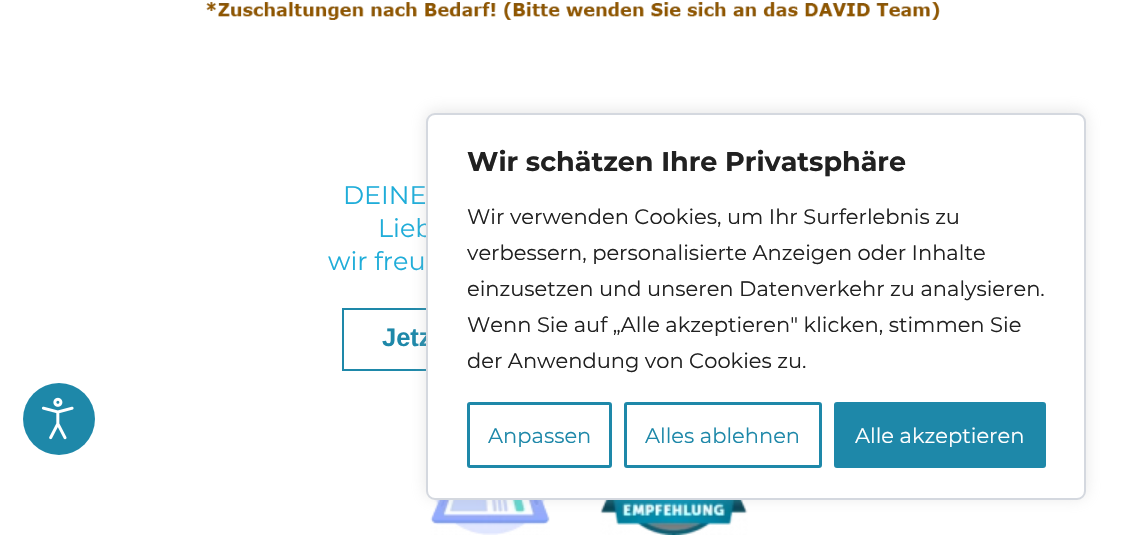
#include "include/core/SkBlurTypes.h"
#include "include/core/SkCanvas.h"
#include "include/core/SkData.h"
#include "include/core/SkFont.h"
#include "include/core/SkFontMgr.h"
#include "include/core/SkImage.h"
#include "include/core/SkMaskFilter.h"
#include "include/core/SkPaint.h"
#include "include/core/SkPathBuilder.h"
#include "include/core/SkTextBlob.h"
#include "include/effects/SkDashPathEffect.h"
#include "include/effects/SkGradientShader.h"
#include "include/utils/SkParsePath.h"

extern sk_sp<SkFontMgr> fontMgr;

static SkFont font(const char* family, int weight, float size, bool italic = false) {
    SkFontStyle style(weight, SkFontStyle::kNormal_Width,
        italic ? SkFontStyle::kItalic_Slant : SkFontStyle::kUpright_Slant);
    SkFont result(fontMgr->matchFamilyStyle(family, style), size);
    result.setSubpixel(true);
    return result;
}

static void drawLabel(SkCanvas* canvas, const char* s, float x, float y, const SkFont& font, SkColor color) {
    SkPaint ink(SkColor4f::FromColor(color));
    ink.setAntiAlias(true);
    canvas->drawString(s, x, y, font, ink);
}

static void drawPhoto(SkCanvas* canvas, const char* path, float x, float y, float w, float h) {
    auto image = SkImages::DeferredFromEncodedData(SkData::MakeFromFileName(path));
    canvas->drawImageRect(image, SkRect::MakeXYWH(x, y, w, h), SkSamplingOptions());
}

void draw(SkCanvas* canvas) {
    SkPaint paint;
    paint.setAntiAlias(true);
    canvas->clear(0xFFFFFFFF);
    drawPhoto(canvas, "assets/img1.png", 206, 2, 734, 18);
    SkFont font1 = font("Montserrat", 100, 25.5f);
    drawLabel(canvas, "DEINE", 343, 204, font1, 0xFF1FADD9);
    drawLabel(canvas, "Lieb", 378, 237, font1, 0xFF1FADD9);
    drawLabel(canvas, "wir freu", 328, 270, font1, 0xFF1FADD9);
    paint.setStroke(true);
    paint.setStrokeWidth(2);
    paint.setColor(0xFF1E88A9);
    canvas->drawRect(SkRect::MakeXYWH(343, 309, 460, 61), paint);
    SkFont font2 = font("Liberation Sans", 700, 25.5f);
    drawLabel(canvas, "Jetz", 382, 346, font2, 0xFF1E88A9);
    drawPhoto(canvas, "assets/img2.png", 430, 499, 120, 36);
    drawPhoto(canvas, "assets/img3.png", 600, 500, 148, 35);
    paint.setStroke(false);
    paint.setColor(0x4DACABAB);
    paint.setMaskFilter(SkMaskFilter::MakeBlur(kNormal_SkBlurStyle, 7.5f));
    canvas->drawRoundRect(SkRect::MakeXYWH(426, 111, 660, 387), 9, 9, paint);
    paint.setMaskFilter(nullptr);
    paint.setColor(0xFFFFFFFF);
    canvas->drawRoundRect(SkRect::MakeXYWH(427, 114, 658, 385), 8, 8, paint);
    paint.setStroke(true);
    paint.setColor(0xFFD4D8DF);
    canvas->drawRoundRect(SkRect::MakeXYWH(427, 114, 658, 385), 8, 8, paint);
    SkFont font3 = font("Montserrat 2", 100, 27);
    drawLabel(canvas, "Wir schätzen Ihre Privatsphäre", 467, 171, font3, 0xFF212121);
    SkFont font4 = font("Montserrat", 100, 21);
    drawLabel(canvas, "Wir verwenden Cookies, um Ihr Surferlebnis zu", 467, 224, font4, 0xFF212121);
    drawLabel(canvas, "verbessern, personalisierte Anzeigen oder Inhalte", 467, 260, font4, 0xFF212121);
    drawLabel(canvas, "einzusetzen und unseren Datenverkehr zu analysieren.", 467, 296, font4, 0xFF212121);
    drawLabel(canvas, "Wenn Sie auf „Alle akzeptieren\" klicken, stimmen Sie", 467, 332, font4, 0xFF212121);
    drawLabel(canvas, "der Anwendung von Cookies zu.", 467, 368, font4, 0xFF212121);
    paint.setStrokeWidth(3);
    paint.setColor(0xFF1E88A9);
    canvas->drawRoundRect(SkRect::MakeXYWH(468.5f, 403.5f, 142, 63), 1.5f, 1.5f, paint);
    drawLabel(canvas, "Anpassen", 488, 443, font4, 0xFF1E88A9);
    canvas->drawRoundRect(SkRect::MakeXYWH(625.5f, 403.5f, 195, 63), 1.5f, 1.5f, paint);
    drawLabel(canvas, "Alles ablehnen", 645, 443, font4, 0xFF1E88A9);
    paint.setStroke(false);
    canvas->drawRoundRect(SkRect::MakeXYWH(835.5f, 403.5f, 209, 63), 1.5f, 1.5f, paint);
    paint.setStroke(true);
    canvas->drawRoundRect(SkRect::MakeXYWH(835.5f, 403.5f, 209, 63), 1.5f, 1.5f, paint);
    drawLabel(canvas, "Alle akzeptieren", 855, 443, font4, 0xFFFFFFFF);
    paint.setStroke(false);
    canvas->drawCircle(59, 419, 36, paint);
    drawPhoto(canvas, "assets/img4.png", 41, 397, 33, 43);
}
